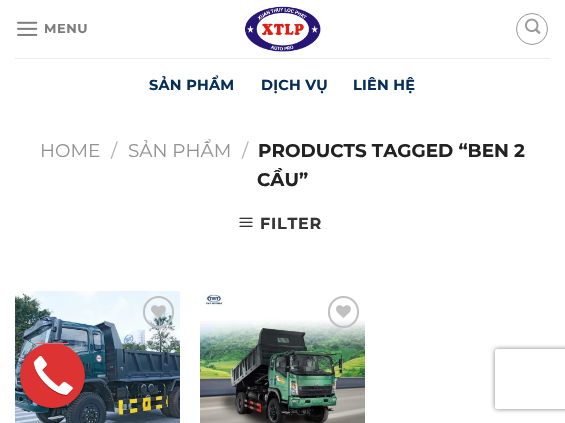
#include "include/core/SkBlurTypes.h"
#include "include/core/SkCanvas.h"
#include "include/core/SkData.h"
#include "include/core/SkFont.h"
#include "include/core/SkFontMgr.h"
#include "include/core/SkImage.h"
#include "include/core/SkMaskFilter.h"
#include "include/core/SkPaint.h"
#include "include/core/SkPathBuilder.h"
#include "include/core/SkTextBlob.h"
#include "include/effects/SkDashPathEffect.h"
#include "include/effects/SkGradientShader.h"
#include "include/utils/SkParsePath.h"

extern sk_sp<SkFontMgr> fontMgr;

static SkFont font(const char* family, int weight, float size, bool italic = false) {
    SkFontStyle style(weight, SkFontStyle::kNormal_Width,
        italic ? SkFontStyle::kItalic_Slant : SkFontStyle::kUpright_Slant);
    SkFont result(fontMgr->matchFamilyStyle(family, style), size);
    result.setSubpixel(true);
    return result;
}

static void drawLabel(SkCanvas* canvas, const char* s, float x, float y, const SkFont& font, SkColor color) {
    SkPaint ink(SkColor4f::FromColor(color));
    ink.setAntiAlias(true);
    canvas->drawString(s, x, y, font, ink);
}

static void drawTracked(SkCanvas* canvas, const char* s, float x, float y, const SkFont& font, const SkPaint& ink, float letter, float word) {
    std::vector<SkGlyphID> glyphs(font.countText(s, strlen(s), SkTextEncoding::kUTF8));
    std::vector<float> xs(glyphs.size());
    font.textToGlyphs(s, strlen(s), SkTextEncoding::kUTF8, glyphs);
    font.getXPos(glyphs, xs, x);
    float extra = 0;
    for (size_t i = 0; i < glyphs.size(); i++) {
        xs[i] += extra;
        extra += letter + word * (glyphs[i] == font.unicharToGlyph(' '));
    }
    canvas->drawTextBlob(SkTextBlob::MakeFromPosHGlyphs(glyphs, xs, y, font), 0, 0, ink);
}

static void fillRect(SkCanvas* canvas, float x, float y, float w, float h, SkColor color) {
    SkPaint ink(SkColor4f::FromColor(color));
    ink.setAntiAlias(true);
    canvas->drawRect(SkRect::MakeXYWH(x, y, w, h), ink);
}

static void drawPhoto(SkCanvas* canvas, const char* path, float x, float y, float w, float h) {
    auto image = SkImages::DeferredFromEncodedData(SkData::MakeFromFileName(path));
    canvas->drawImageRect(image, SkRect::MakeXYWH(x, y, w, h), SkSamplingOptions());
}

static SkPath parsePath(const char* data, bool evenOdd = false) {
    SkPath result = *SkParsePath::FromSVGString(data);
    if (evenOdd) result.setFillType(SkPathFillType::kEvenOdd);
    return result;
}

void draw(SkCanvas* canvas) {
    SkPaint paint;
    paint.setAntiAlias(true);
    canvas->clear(0xFFFFFFFF);
    drawPhoto(canvas, "assets/img1.png", 17, 21, 21, 15);
    SkFont font1 = font("Montserrat", 700, 13);
    paint.setColor(0xFF7D7D7D);
    drawTracked(canvas, "MENU", 44, 33, font1, paint, 0.5f, 0);
    drawPhoto(canvas, "assets/img2.png", 244, 6, 77, 46);
    paint.setStroke(true);
    paint.setStrokeWidth(1);
    paint.setColor(0xFF999999);
    canvas->drawCircle(532, 29, 15.5f, paint);
    drawPhoto(canvas, "assets/img3.png", 525, 18, 16, 16);
    fillRect(canvas, 15, 58, 535, 1, 0xFFEBEBEB);
    SkFont font2 = font("Montserrat", 700, 14.5f);
    paint.setStroke(false);
    paint.setColor(0xFF052F59);
    drawTracked(canvas, "SẢN PHẨM", 149, 90, font2, paint, 0.25f, 0);
    drawTracked(canvas, "DỊCH VỤ", 261, 90, font2, paint, 0.25f, 0);
    drawTracked(canvas, "LIÊN HỆ", 353, 90, font2, paint, 0.25f, 0);
    SkFont font3 = font("Montserrat", 400, 18.4f);
    drawLabel(canvas, "HOME", 40, 157, font3, 0xFF949494);
    drawLabel(canvas, "/", 111, 157, font3, 0xFFB2B2B2);
    drawLabel(canvas, "SẢN PHẨM", 128, 157, font3, 0xFF949494);
    drawLabel(canvas, "/", 242, 157, font3, 0xFFB2B2B2);
    SkFont font4 = font("Montserrat", 700, 18.4f);
    drawLabel(canvas, "PRODUCTS TAGGED “BEN 2", 258, 157, font4, 0xFF222222);
    drawLabel(canvas, "CẦU”", 257, 186, font4, 0xFF222222);
    drawPhoto(canvas, "assets/img4.png", 239, 217, 14, 10);
    SkFont font5 = font("Montserrat", 700, 16);
    paint.setColor(0xFF353535);
    drawTracked(canvas, "FILTER", 260, 229, font5, paint, 0.75f, 0);
    drawPhoto(canvas, "assets/img5.png", 15, 291, 165, 132);
    paint.setStroke(true);
    paint.setStrokeWidth(2);
    paint.setColor(0xFFC0C0C0);
    canvas->drawRoundRect(SkRect::MakeXYWH(144, 297, 29, 30), 14.5f, 14.5f, paint);
    drawPhoto(canvas, "assets/img6.png", 151, 305, 15, 13);
    drawPhoto(canvas, "assets/img7.png", 200, 291, 165, 132);
    canvas->drawRoundRect(SkRect::MakeXYWH(329, 297, 29, 30), 14.5f, 14.5f, paint);
    drawPhoto(canvas, "assets/img8.png", 336, 305, 15, 13);
    paint.setStroke(false);
    paint.setColor(0x66000000);
    paint.setMaskFilter(SkMaskFilter::MakeBlur(kNormal_SkBlurStyle, 1));
    canvas->drawRoundRect(SkRect::MakeXYWH(20, 344, 65, 65), 32.5f, 32.5f, paint);
    paint.setMaskFilter(nullptr);
    paint.setColor(0xFFDD3333);
    canvas->drawCircle(52.5f, 375.5f, 32.5f, paint);
    drawPhoto(canvas, "assets/img9.png", 33, 356, 40, 40);
    fillRect(canvas, 36, 343, 33, 1, 0xFFFF6060);
    canvas->save();
    canvas->clipPath(parsePath("M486 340H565V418H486ZM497 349H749C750 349 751 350 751 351V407C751 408 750 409 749 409H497C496 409 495 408 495 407V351C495 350 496 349 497 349Z", true), true);
    paint.setColor(0xFF808080);
    paint.setMaskFilter(SkMaskFilter::MakeBlur(kNormal_SkBlurStyle, 2.5f));
    canvas->drawRoundRect(SkRect::MakeXYWH(495, 349, 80, 60), 2, 2, paint);
    paint.setMaskFilter(nullptr);
    canvas->restore();
}
